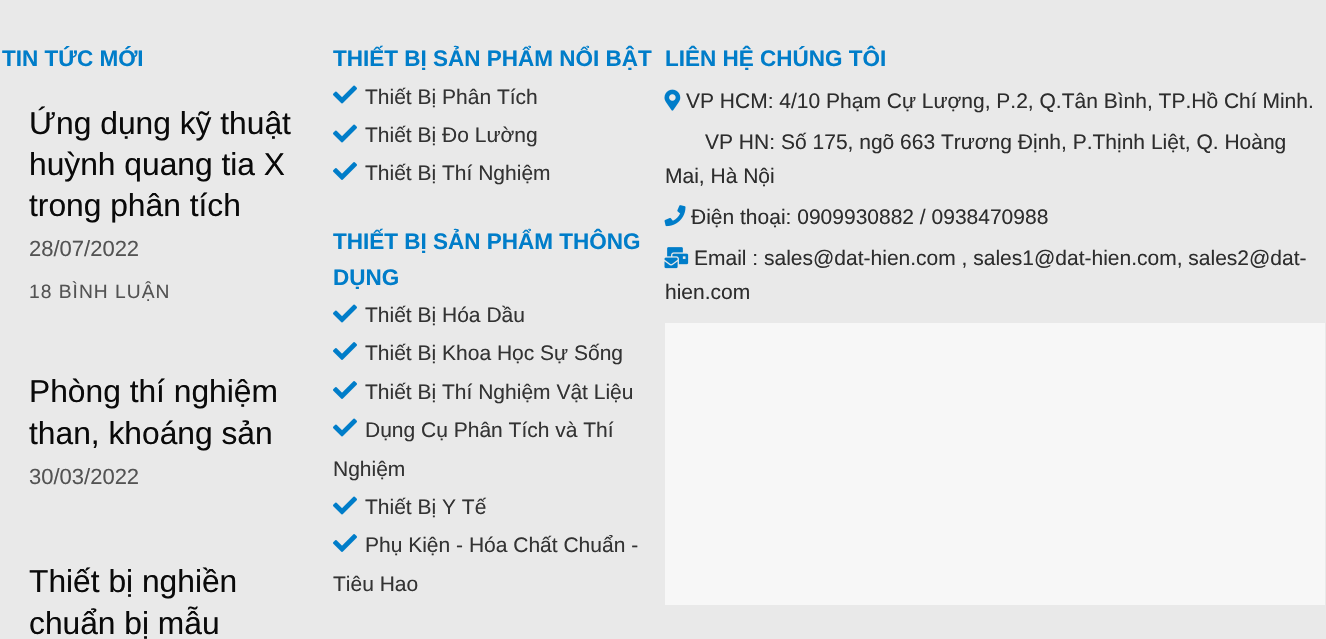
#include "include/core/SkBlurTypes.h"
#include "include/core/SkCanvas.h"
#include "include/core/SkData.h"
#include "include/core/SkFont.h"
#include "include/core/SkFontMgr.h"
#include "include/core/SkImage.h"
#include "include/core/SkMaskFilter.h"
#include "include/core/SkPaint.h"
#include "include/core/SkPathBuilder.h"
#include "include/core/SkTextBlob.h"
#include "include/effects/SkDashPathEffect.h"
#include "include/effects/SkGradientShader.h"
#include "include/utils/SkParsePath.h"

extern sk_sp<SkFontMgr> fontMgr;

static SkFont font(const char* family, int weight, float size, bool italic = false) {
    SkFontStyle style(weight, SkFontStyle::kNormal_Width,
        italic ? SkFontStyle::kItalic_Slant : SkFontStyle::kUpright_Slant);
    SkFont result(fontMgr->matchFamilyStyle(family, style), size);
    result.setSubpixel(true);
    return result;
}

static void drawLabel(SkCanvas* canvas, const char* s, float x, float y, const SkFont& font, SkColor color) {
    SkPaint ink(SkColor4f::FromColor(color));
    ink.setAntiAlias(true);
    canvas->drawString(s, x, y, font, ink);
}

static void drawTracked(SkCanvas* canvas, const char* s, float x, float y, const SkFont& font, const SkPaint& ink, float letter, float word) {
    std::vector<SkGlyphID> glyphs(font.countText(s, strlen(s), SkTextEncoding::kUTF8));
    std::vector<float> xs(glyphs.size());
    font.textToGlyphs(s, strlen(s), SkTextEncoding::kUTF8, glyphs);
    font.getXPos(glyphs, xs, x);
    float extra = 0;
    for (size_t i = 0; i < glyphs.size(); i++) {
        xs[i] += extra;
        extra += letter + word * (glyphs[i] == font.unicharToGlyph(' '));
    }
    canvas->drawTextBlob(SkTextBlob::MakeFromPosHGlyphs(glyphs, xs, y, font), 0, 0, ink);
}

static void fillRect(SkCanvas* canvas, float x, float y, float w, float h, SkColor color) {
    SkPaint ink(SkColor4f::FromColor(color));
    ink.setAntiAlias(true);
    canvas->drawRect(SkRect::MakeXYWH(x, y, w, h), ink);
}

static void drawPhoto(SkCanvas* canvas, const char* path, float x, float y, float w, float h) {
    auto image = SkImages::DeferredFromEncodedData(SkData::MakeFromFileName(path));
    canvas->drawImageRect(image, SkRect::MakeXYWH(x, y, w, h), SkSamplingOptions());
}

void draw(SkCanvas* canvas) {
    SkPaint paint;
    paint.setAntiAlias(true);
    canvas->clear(0xFFE9E9E9);
    SkFont font1 = font("Liberation Sans", 700, 22.5f);
    drawLabel(canvas, "TIN TỨC MỚI", 2, 66, font1, 0xFF007DC9);
    SkFont font2 = font("Liberation Sans", 400, 31.75f);
    drawLabel(canvas, "Ứng dụng kỹ thuật", 29, 134, font2, 0xFF0A0A0A);
    drawLabel(canvas, "huỳnh quang tia X", 29, 175, font2, 0xFF0A0A0A);
    drawLabel(canvas, "trong phân tích", 29, 216, font2, 0xFF0A0A0A);
    SkFont font3 = font("Liberation Sans", 400, 22);
    drawLabel(canvas, "28/07/2022", 29, 256, font3, 0xFF535353);
    SkFont font4 = font("Liberation Sans", 400, 19.25f);
    paint.setColor(0xFF535353);
    drawTracked(canvas, "18 BÌNH LUẬN", 29, 298, font4, paint, 1, 0);
    drawLabel(canvas, "Phòng thí nghiệm", 29, 402, font2, 0xFF0A0A0A);
    drawLabel(canvas, "than, khoáng sản", 29, 444, font2, 0xFF0A0A0A);
    drawLabel(canvas, "30/03/2022", 29, 484, font3, 0xFF535353);
    drawLabel(canvas, "Thiết bị nghiền", 29, 592, font2, 0xFF0A0A0A);
    drawLabel(canvas, "chuẩn bị mẫu", 29, 634, font2, 0xFF0A0A0A);
    drawLabel(canvas, "THIẾT BỊ SẢN PHẨM NỔI BẬT", 333, 66, font1, 0xFF007DC9);
    drawPhoto(canvas, "assets/img1.png", 333, 85, 24, 19);
    SkFont font5 = font("Liberation Sans", 400, 21);
    drawLabel(canvas, "Thiết Bị Phân Tích", 365, 104, font5, 0xFF333333);
    drawPhoto(canvas, "assets/img1.png", 333, 124, 24, 19);
    drawLabel(canvas, "Thiết Bị Đo Lường", 365, 142, font5, 0xFF333333);
    drawPhoto(canvas, "assets/img2.png", 333, 162, 24, 18);
    drawLabel(canvas, "Thiết Bị Thí Nghiệm", 365, 180, font5, 0xFF333333);
    drawLabel(canvas, "THIẾT BỊ SẢN PHẨM THÔNG", 333, 249, font1, 0xFF007DC9);
    drawLabel(canvas, "DỤNG", 333, 285, font1, 0xFF007DC9);
    drawPhoto(canvas, "assets/img1.png", 333, 304, 24, 19);
    drawLabel(canvas, "Thiết Bị Hóa Dầu", 365, 322, font5, 0xFF333333);
    drawPhoto(canvas, "assets/img2.png", 333, 342, 24, 18);
    drawLabel(canvas, "Thiết Bị Khoa Học Sự Sống", 365, 360, font5, 0xFF333333);
    drawPhoto(canvas, "assets/img2.png", 333, 381, 24, 18);
    drawLabel(canvas, "Thiết Bị Thí Nghiệm Vật Liệu", 365, 399, font5, 0xFF333333);
    drawPhoto(canvas, "assets/img1.png", 333, 418, 24, 19);
    drawLabel(canvas, "Dụng Cụ Phân Tích và Thí", 365, 437, font5, 0xFF333333);
    drawLabel(canvas, "Nghiệm", 333, 476, font5, 0xFF333333);
    drawPhoto(canvas, "assets/img1.png", 333, 496, 24, 19);
    drawLabel(canvas, "Thiết Bị Y Tế", 365, 514, font5, 0xFF333333);
    drawPhoto(canvas, "assets/img2.png", 333, 534, 24, 18);
    drawLabel(canvas, "Phụ Kiện - Hóa Chất Chuẩn -", 365, 552, font5, 0xFF333333);
    drawLabel(canvas, "Tiêu Hao", 333, 591, font5, 0xFF333333);
    drawLabel(canvas, "LIÊN HỆ CHÚNG TÔI", 665, 66, font1, 0xFF007DC9);
    drawPhoto(canvas, "assets/img3.png", 664, 89, 17, 22);
    drawLabel(canvas, "VP HCM: 4/10 Phạm Cự Lượng, P.2, Q.Tân Bình, TP.Hồ Chí Minh.", 686, 108, font5, 0xFF2D2D2D);
    drawLabel(canvas, "VP HN:", 705, 149, font5, 0xFF2D2D2D);
    drawLabel(canvas, "Số 175, ngõ 663 Trương Định, P.Thịnh Liệt, Q. Hoàng", 781, 149, font5, 0xFF2D2D2D);
    drawLabel(canvas, "Mai, Hà Nội", 665, 183, font5, 0xFF2D2D2D);
    drawPhoto(canvas, "assets/img4.png", 664, 205, 22, 22);
    drawLabel(canvas, "Điện thoại: 0909930882 / 0938470988", 691, 224, font5, 0xFF2D2D2D);
    drawPhoto(canvas, "assets/img5.png", 664, 247, 25, 22);
    drawLabel(canvas, "Email : sales@dat-hien.com , sales1@dat-hien.com, sales2@dat-", 694, 265, font5, 0xFF2D2D2D);
    drawLabel(canvas, "hien.com", 665, 299, font5, 0xFF2D2D2D);
    fillRect(canvas, 665, 323, 660, 282, 0xFFF7F7F7);
}
